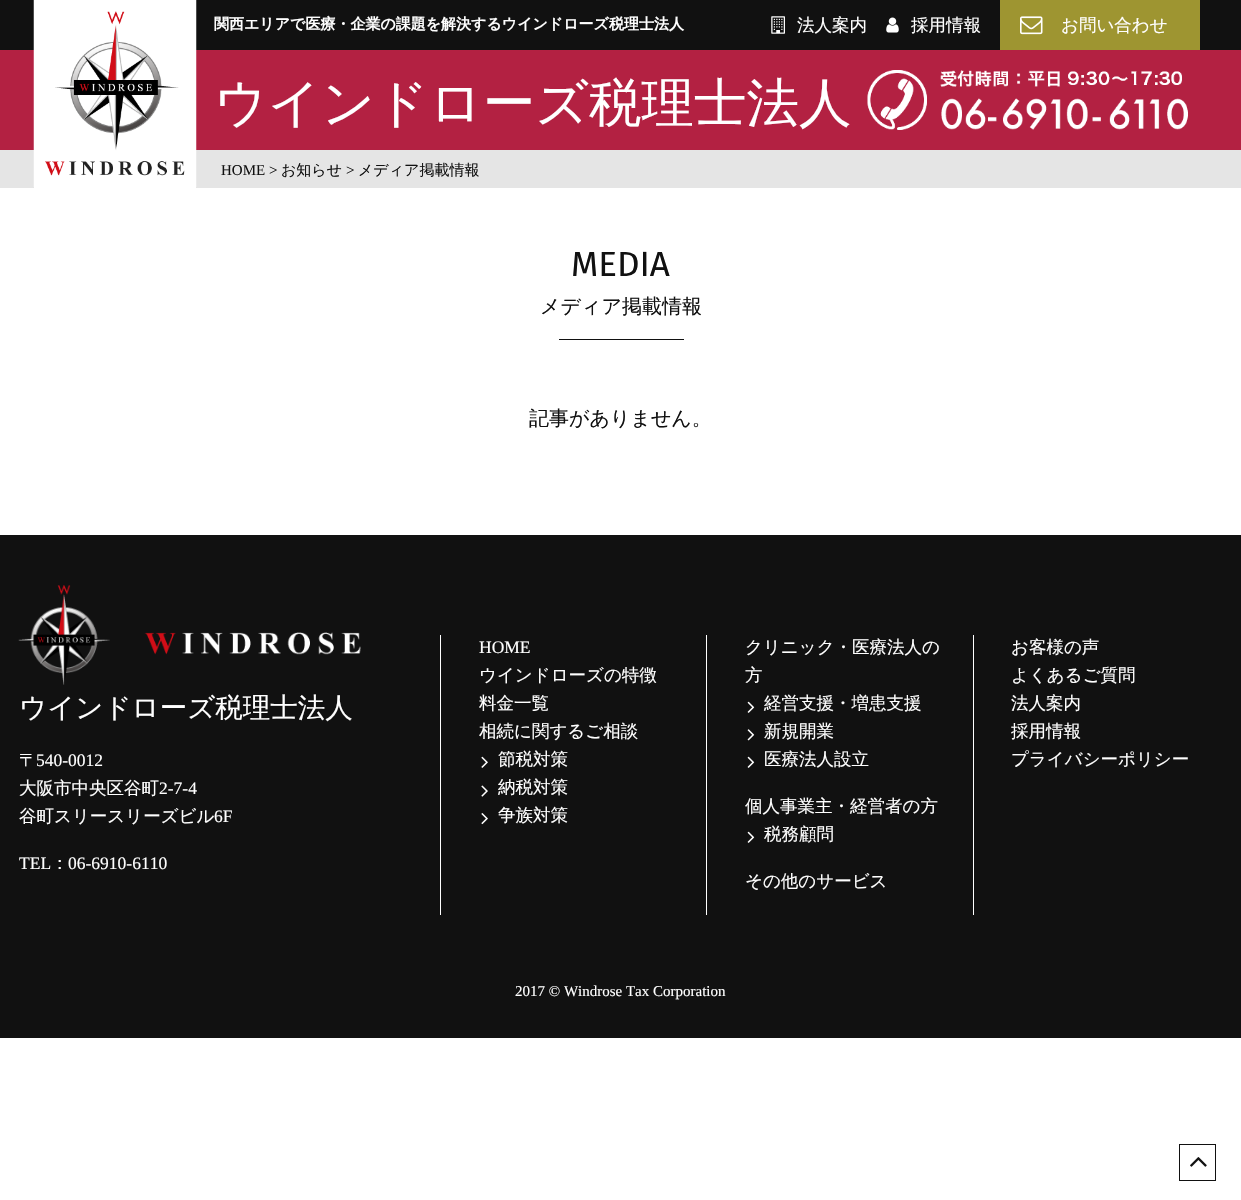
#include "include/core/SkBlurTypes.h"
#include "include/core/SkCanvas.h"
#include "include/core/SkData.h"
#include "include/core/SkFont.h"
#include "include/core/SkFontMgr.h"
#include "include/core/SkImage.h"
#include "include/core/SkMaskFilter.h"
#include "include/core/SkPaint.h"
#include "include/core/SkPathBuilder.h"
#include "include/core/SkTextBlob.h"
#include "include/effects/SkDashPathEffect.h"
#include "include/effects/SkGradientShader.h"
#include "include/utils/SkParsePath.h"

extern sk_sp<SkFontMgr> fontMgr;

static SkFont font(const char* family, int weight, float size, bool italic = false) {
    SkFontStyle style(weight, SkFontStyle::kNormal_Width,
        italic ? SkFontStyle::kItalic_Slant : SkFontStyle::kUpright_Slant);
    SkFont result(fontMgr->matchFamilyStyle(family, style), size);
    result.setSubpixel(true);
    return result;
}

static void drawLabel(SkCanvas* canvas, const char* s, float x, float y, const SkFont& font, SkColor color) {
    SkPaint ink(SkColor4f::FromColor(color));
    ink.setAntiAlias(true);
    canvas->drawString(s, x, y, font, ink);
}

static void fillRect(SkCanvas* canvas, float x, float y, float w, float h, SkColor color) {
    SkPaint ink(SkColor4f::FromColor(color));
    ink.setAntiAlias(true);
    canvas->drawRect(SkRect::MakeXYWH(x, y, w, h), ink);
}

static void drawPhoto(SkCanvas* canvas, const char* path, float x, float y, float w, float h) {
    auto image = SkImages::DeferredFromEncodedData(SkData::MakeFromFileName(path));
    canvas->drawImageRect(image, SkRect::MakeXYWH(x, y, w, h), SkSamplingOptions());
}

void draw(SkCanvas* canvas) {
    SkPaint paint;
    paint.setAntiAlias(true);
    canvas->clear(0xFFFFFFFF);
    fillRect(canvas, 0, 0, 1241, 50, 0xFF111111);
    SkFont font1 = font("WenQuanYi Zen Hei", 700, 15);
    drawLabel(canvas, "関西エリアで医療・企業の課題を解決するウインドローズ税理士法人", 214, 29, font1, 0xFFFFFFFF);
    drawPhoto(canvas, "assets/img1.png", 771, 16, 14, 18);
    SkFont font2 = font("WenQuanYi Zen Hei", 500, 17.5f);
    drawLabel(canvas, "法人案内", 797, 31, font2, 0xFFFFFFFF);
    drawPhoto(canvas, "assets/img2.png", 886, 17, 13, 16);
    drawLabel(canvas, "採用情報", 911, 31, font2, 0xFFFFFFFF);
    fillRect(canvas, 1000, 0, 200, 50, 0xFF9E9531);
    drawPhoto(canvas, "assets/img3.png", 1020, 16, 23, 19);
    drawLabel(canvas, "お問い合わせ", 1061, 31, font2, 0xFFFFFFFF);
    fillRect(canvas, 0, 50, 1241, 100, 0xFFB32142);
    fillRect(canvas, 0, 150, 1241, 38, 0xFFE5E5E5);
    fillRect(canvas, 34, 187, 162, 1, 0xFFFFFFFF);
    drawPhoto(canvas, "assets/img4.png", 33, 0, 164, 187);
    SkFont font3 = font("WenQuanYi Zen Hei", 500, 52.5f);
    drawLabel(canvas, "ウインドローズ税理士法人", 214, 121, font3, 0xFFFFFFFF);
    drawPhoto(canvas, "assets/img5.png", 867, 70, 321, 60);
    SkFont font4 = font("Liberation Serif", 400, 15);
    drawLabel(canvas, "HOME >", 221, 175, font4, 0xFF111111);
    SkFont font5 = font("WenQuanYi Zen Hei", 500, 15);
    drawLabel(canvas, "お知らせ", 281, 175, font5, 0xFF111111);
    drawLabel(canvas, ">", 346, 175, font4, 0xFF111111);
    drawLabel(canvas, "メディア掲載情報", 358, 175, font5, 0xFF111111);
    SkFont font6 = font("Fira Sans", 400, 35);
    drawLabel(canvas, "MEDIA", 571, 276, font6, 0xFF111111);
    SkFont font7 = font("WenQuanYi Zen Hei", 500, 20);
    drawLabel(canvas, "メディア掲載情報", 540, 313, font7, 0xFF111111);
    fillRect(canvas, 559, 339, 125, 1, 0xFF111111);
    drawLabel(canvas, "記事がありません。", 529, 425, font7, 0xFF111111);
    fillRect(canvas, 0, 535, 1241, 503, 0xFF111111);
    drawPhoto(canvas, "assets/img6.png", 18, 585, 343, 100);
    SkFont font8 = font("WenQuanYi Zen Hei", 500, 27.5f);
    drawLabel(canvas, "ウインドローズ税理士法人", 19, 717, font8, 0xFFFFFFFF);
    drawLabel(canvas, "〒", 19, 766, font2, 0xFFFFFFFF);
    SkFont font9 = font("Liberation Serif", 400, 17.5f);
    drawLabel(canvas, "540-0012", 36, 766, font9, 0xFFFFFFFF);
    drawLabel(canvas, "大阪市中央区谷町", 19, 794, font2, 0xFFFFFFFF);
    drawLabel(canvas, "2-7-4", 159, 794, font9, 0xFFFFFFFF);
    drawLabel(canvas, "谷町スリースリーズビル", 19, 822, font2, 0xFFFFFFFF);
    drawLabel(canvas, "6F", 214, 822, font9, 0xFFFFFFFF);
    drawLabel(canvas, "TEL", 19, 869, font9, 0xFFFFFFFF);
    drawLabel(canvas, "：", 51, 869, font2, 0xFFFFFFFF);
    drawLabel(canvas, "06-6910-6110", 68, 869, font9, 0xFFFFFFFF);
    fillRect(canvas, 440, 635, 1, 280, 0xFFFFFFFF);
    drawLabel(canvas, "HOME", 479, 653, font9, 0xFFFFFFFF);
    drawLabel(canvas, "ウインドローズの特徴", 479, 681, font2, 0xFFFFFFFF);
    drawLabel(canvas, "料金一覧", 479, 709, font2, 0xFFFFFFFF);
    drawLabel(canvas, "相続に関するご相談", 479, 737, font2, 0xFFFFFFFF);
    drawPhoto(canvas, "assets/img7.png", 481, 756, 7, 12);
    drawLabel(canvas, "節税対策", 498, 765, font2, 0xFFFFFFFF);
    drawPhoto(canvas, "assets/img8.png", 481, 785, 7, 12);
    drawLabel(canvas, "納税対策", 498, 793, font2, 0xFFFFFFFF);
    drawPhoto(canvas, "assets/img9.png", 481, 813, 7, 12);
    drawLabel(canvas, "争族対策", 498, 821, font2, 0xFFFFFFFF);
    fillRect(canvas, 706, 635, 1, 280, 0xFFFFFFFF);
    drawLabel(canvas, "クリニック・医療法人の", 745, 653, font2, 0xFFFFFFFF);
    drawLabel(canvas, "方", 745, 681, font2, 0xFFFFFFFF);
    drawPhoto(canvas, "assets/img10.png", 747, 701, 8, 12);
    drawLabel(canvas, "経営支援・増患支援", 764, 709, font2, 0xFFFFFFFF);
    drawPhoto(canvas, "assets/img11.png", 747, 729, 8, 12);
    drawLabel(canvas, "新規開業", 764, 737, font2, 0xFFFFFFFF);
    drawPhoto(canvas, "assets/img10.png", 747, 756, 8, 12);
    drawLabel(canvas, "医療法人設立", 764, 765, font2, 0xFFFFFFFF);
    drawLabel(canvas, "個人事業主・経営者の方", 745, 812, font2, 0xFFFFFFFF);
    drawPhoto(canvas, "assets/img10.png", 747, 831, 8, 12);
    drawLabel(canvas, "税務顧問", 764, 840, font2, 0xFFFFFFFF);
    drawLabel(canvas, "その他のサービス", 745, 887, font2, 0xFFFFFFFF);
    fillRect(canvas, 973, 635, 1, 280, 0xFFFFFFFF);
    drawLabel(canvas, "お客様の声", 1011, 653, font2, 0xFFFFFFFF);
    drawLabel(canvas, "よくあるご質問", 1011, 681, font2, 0xFFFFFFFF);
    drawLabel(canvas, "法人案内", 1011, 709, font2, 0xFFFFFFFF);
    drawLabel(canvas, "採用情報", 1011, 737, font2, 0xFFFFFFFF);
    drawLabel(canvas, "プライバシーポリシー", 1011, 765, font2, 0xFFFFFFFF);
    drawLabel(canvas, "2017 © Windrose Tax Corporation", 515, 996, font4, 0xFFFFFFFF);
    paint.setStroke(true);
    paint.setStrokeWidth(1);
    paint.setColor(0xFF111111);
    canvas->drawRect(SkRect::MakeXYWH(1179.5f, 1144.5f, 36, 36), paint);
    drawPhoto(canvas, "assets/img12.png", 1190, 1157, 17, 10);
}
